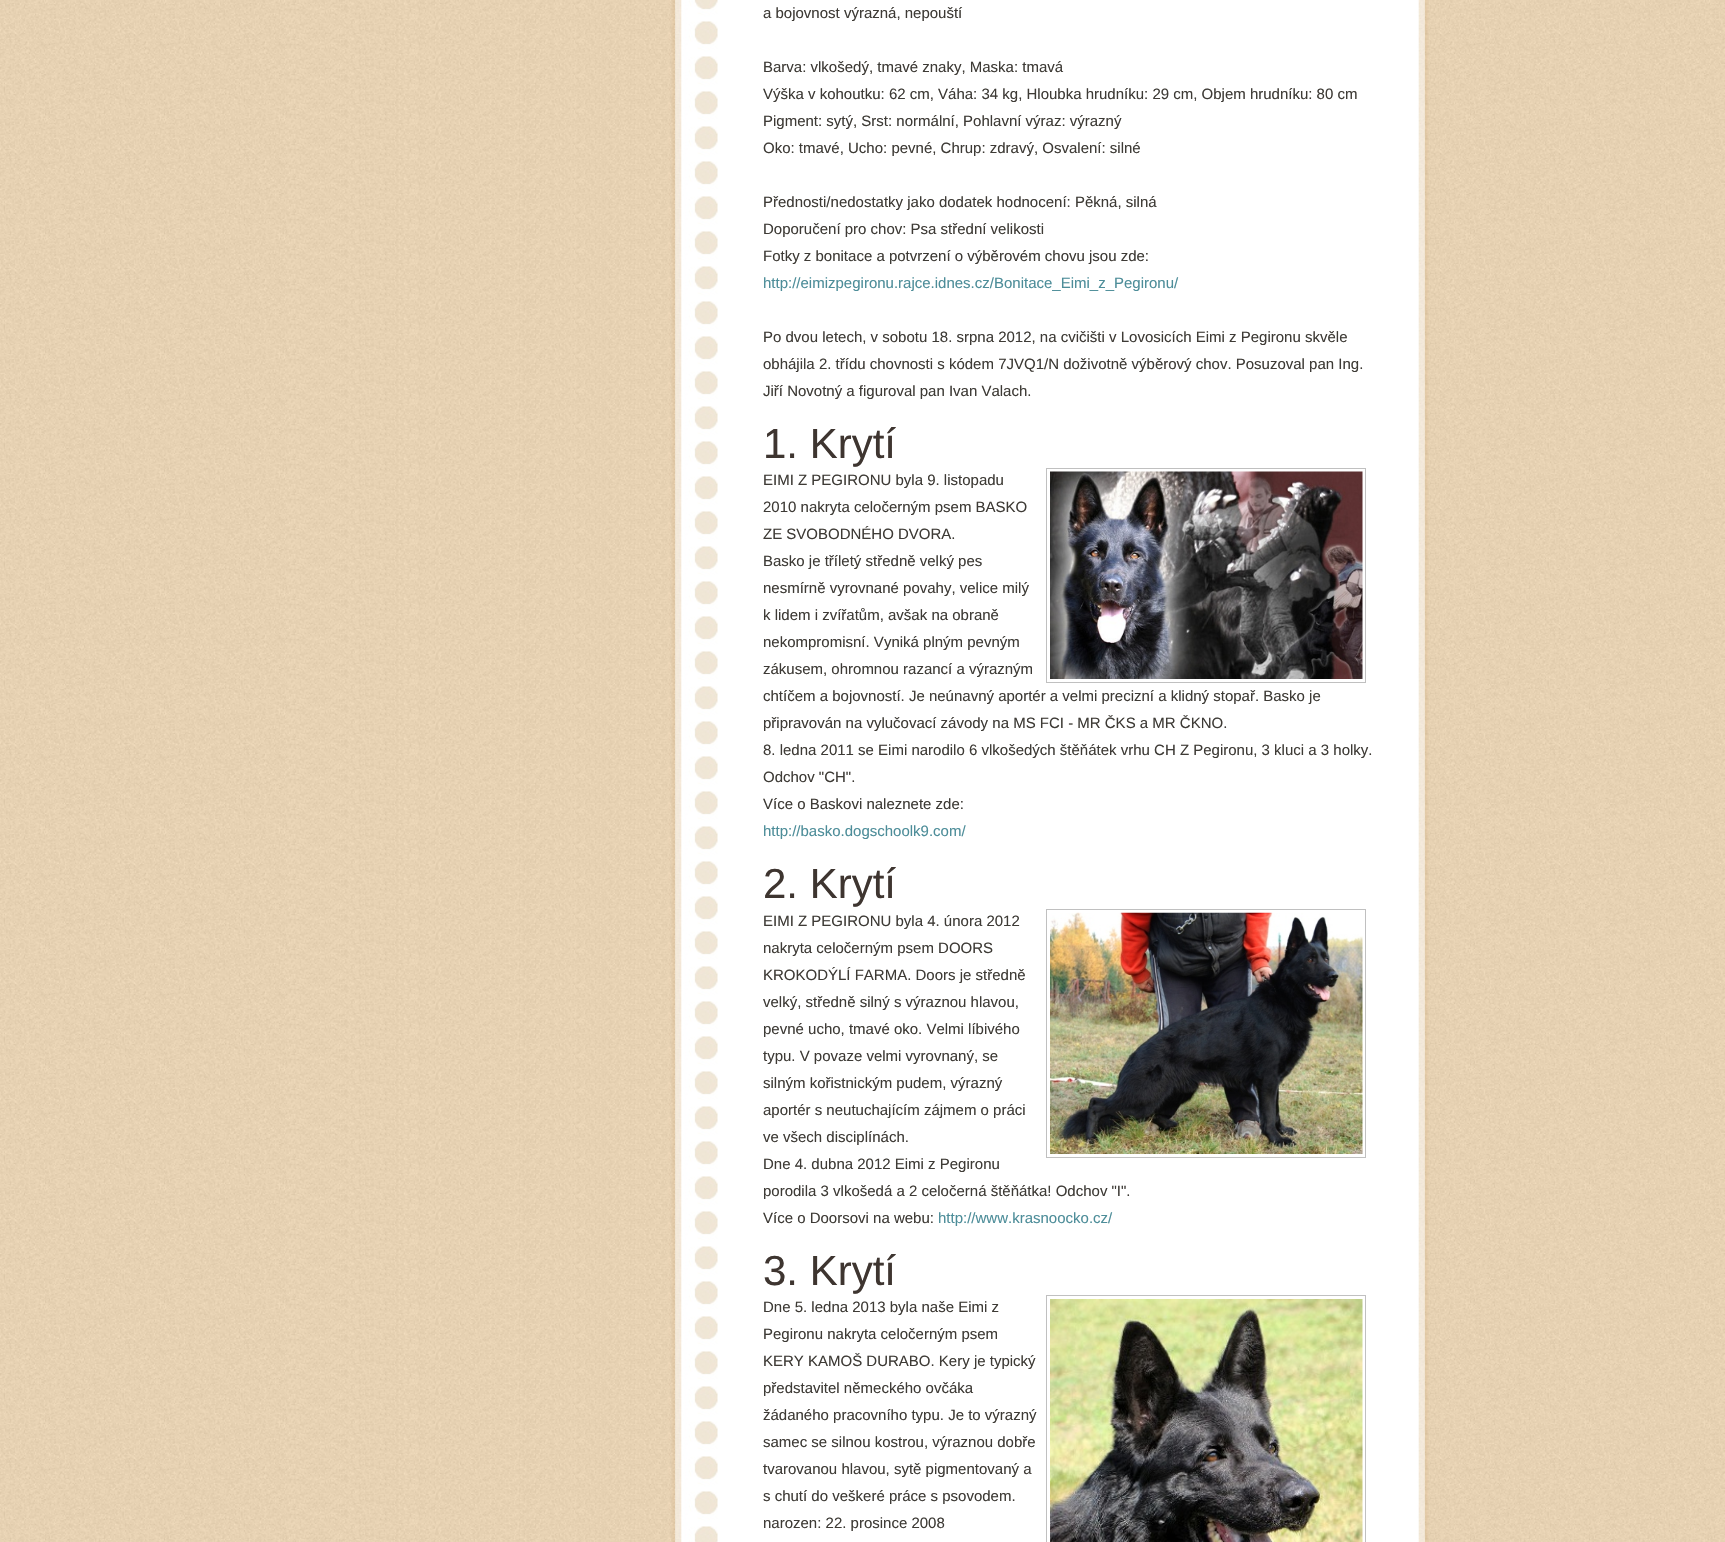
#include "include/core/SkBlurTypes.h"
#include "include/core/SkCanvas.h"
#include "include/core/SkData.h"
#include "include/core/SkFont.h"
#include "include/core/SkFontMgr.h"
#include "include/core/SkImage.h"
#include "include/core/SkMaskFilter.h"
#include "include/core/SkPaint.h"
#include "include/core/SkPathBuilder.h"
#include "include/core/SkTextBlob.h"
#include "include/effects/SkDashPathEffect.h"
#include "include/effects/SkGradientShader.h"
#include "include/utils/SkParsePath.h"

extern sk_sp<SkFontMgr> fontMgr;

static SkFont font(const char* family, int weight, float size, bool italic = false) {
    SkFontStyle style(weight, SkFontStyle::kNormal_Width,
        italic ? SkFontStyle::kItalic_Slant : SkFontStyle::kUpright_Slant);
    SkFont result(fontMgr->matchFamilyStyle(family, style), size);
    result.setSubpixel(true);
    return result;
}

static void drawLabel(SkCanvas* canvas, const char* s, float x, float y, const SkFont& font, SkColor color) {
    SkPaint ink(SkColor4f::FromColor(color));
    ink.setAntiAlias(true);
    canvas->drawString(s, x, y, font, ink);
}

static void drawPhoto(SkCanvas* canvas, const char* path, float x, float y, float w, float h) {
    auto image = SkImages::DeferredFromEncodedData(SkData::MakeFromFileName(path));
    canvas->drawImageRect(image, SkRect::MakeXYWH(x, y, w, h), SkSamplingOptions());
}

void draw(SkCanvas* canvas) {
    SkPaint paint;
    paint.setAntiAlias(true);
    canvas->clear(0xFFFFFFFF);
    drawPhoto(canvas, "assets/img1.png", 0, 0, 1725, 1542);
    drawPhoto(canvas, "assets/img2.png", 287, 0, 1151, 1542);
    SkFont font1 = font("Liberation Sans", 400, 15);
    drawLabel(canvas, "a bojovnost výrazná, nepouští", 763, 18, font1, 0xFF3E3B36);
    drawLabel(canvas, "Barva: vlkošedý, tmavé znaky, Maska: tmavá", 763, 72, font1, 0xFF3E3B36);
    drawLabel(canvas, "Výška v kohoutku: 62 cm, Váha: 34 kg, Hloubka hrudníku: 29 cm, Objem hrudníku: 80 cm", 763, 99, font1, 0xFF3E3B36);
    drawLabel(canvas, "Pigment: sytý, Srst: normální, Pohlavní výraz: výrazný", 763, 126, font1, 0xFF3E3B36);
    drawLabel(canvas, "Oko: tmavé, Ucho: pevné, Chrup: zdravý, Osvalení: silné", 763, 153, font1, 0xFF3E3B36);
    drawLabel(canvas, "Přednosti/nedostatky jako dodatek hodnocení: Pěkná, silná", 763, 207, font1, 0xFF3E3B36);
    drawLabel(canvas, "Doporučení pro chov: Psa střední velikosti", 763, 234, font1, 0xFF3E3B36);
    drawLabel(canvas, "Fotky z bonitace a potvrzení o výběrovém chovu jsou zde:", 763, 261, font1, 0xFF3E3B36);
    drawLabel(canvas, "http://eimizpegironu.rajce.idnes.cz/Bonitace_Eimi_z_Pegironu/", 763, 288, font1, 0xFF4D8D99);
    drawLabel(canvas, "Po dvou letech, v sobotu 18. srpna 2012, na cvičišti v Lovosicích Eimi z Pegironu skvěle", 763, 342, font1, 0xFF3E3B36);
    drawLabel(canvas, "obhájila 2. třídu chovnosti s kódem 7JVQ1/N doživotně výběrový chov. Posuzoval pan Ing.", 763, 369, font1, 0xFF3E3B36);
    drawLabel(canvas, "Jiří Novotný a figuroval pan Ivan Valach.", 763, 396, font1, 0xFF3E3B36);
    SkFont font2 = font("Liberation Sans", 400, 42);
    drawLabel(canvas, "1. Krytí", 763, 458, font2, 0xFF3E3530);
    drawLabel(canvas, "EIMI Z PEGIRONU byla 9. listopadu", 763, 485, font1, 0xFF3E3B36);
    paint.setStroke(true);
    paint.setStrokeWidth(1);
    paint.setColor(0xFFC0C0C0);
    canvas->drawRect(SkRect::MakeXYWH(1046.5f, 468.5f, 319, 214), paint);
    drawPhoto(canvas, "assets/img3.png", 1050, 471, 313, 208);
    drawLabel(canvas, "2010 nakryta celočerným psem BASKO", 763, 512, font1, 0xFF3E3B36);
    drawLabel(canvas, "ZE SVOBODNÉHO DVORA.", 763, 539, font1, 0xFF3E3B36);
    drawLabel(canvas, "Basko je tříletý středně velký pes", 763, 566, font1, 0xFF3E3B36);
    drawLabel(canvas, "nesmírně vyrovnané povahy, velice milý", 763, 593, font1, 0xFF3E3B36);
    drawLabel(canvas, "k lidem i zvířatům, avšak na obraně", 763, 620, font1, 0xFF3E3B36);
    drawLabel(canvas, "nekompromisní. Vyniká plným pevným", 763, 647, font1, 0xFF3E3B36);
    drawLabel(canvas, "zákusem, ohromnou razancí a výrazným", 763, 674, font1, 0xFF3E3B36);
    drawLabel(canvas, "chtíčem a bojovností. Je neúnavný aportér a velmi precizní a klidný stopař. Basko je", 763, 701, font1, 0xFF3E3B36);
    drawLabel(canvas, "připravován na vylučovací závody na MS FCI - MR ČKS a MR ČKNO.", 763, 728, font1, 0xFF3E3B36);
    drawLabel(canvas, "8. ledna 2011 se Eimi narodilo 6 vlkošedých štěňátek vrhu CH Z Pegironu, 3 kluci a 3 holky.", 763, 755, font1, 0xFF3E3B36);
    drawLabel(canvas, "Odchov \"CH\".", 763, 782, font1, 0xFF3E3B36);
    drawLabel(canvas, "Více o Baskovi naleznete zde:", 763, 809, font1, 0xFF3E3B36);
    drawLabel(canvas, "http://basko.dogschoolk9.com/", 763, 836, font1, 0xFF4D8D99);
    drawLabel(canvas, "2. Krytí", 763, 898, font2, 0xFF3E3530);
    drawLabel(canvas, "EIMI Z PEGIRONU byla 4. února 2012", 763, 926, font1, 0xFF3E3B36);
    canvas->drawRect(SkRect::MakeXYWH(1046.5f, 909.5f, 319, 248), paint);
    drawPhoto(canvas, "assets/img4.png", 1050, 912, 313, 242);
    drawLabel(canvas, "nakryta celočerným psem DOORS", 763, 953, font1, 0xFF3E3B36);
    drawLabel(canvas, "KROKODÝLÍ FARMA. Doors je středně", 763, 980, font1, 0xFF3E3B36);
    drawLabel(canvas, "velký, středně silný s výraznou hlavou,", 763, 1007, font1, 0xFF3E3B36);
    drawLabel(canvas, "pevné ucho, tmavé oko. Velmi líbivého", 763, 1034, font1, 0xFF3E3B36);
    drawLabel(canvas, "typu. V povaze velmi vyrovnaný, se", 763, 1061, font1, 0xFF3E3B36);
    drawLabel(canvas, "silným kořistnickým pudem, výrazný", 763, 1088, font1, 0xFF3E3B36);
    drawLabel(canvas, "aportér s neutuchajícím zájmem o práci", 763, 1115, font1, 0xFF3E3B36);
    drawLabel(canvas, "ve všech disciplínách.", 763, 1142, font1, 0xFF3E3B36);
    drawLabel(canvas, "Dne 4. dubna 2012 Eimi z Pegironu", 763, 1169, font1, 0xFF3E3B36);
    drawLabel(canvas, "porodila 3 vlkošedá a 2 celočerná štěňátka! Odchov \"I\".", 763, 1196, font1, 0xFF3E3B36);
    drawLabel(canvas, "Více o Doorsovi na webu:", 763, 1223, font1, 0xFF3E3B36);
    drawLabel(canvas, "http://www.krasnoocko.cz/", 938, 1223, font1, 0xFF4D8D99);
    drawLabel(canvas, "3. Krytí", 763, 1285, font2, 0xFF3E3530);
    drawLabel(canvas, "Dne 5. ledna 2013 byla naše Eimi z", 763, 1312, font1, 0xFF3E3B36);
    canvas->drawRect(SkRect::MakeXYWH(1046.5f, 1295.5f, 319, 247), paint);
    drawPhoto(canvas, "assets/img5.png", 1050, 1299, 313, 243);
    drawLabel(canvas, "Pegironu nakryta celočerným psem", 763, 1339, font1, 0xFF3E3B36);
    drawLabel(canvas, "KERY KAMOŠ DURABO. Kery je typický", 763, 1366, font1, 0xFF3E3B36);
    drawLabel(canvas, "představitel německého ovčáka", 763, 1393, font1, 0xFF3E3B36);
    drawLabel(canvas, "žádaného pracovního typu. Je to výrazný", 763, 1420, font1, 0xFF3E3B36);
    drawLabel(canvas, "samec se silnou kostrou, výraznou dobře", 763, 1447, font1, 0xFF3E3B36);
    drawLabel(canvas, "tvarovanou hlavou, sytě pigmentovaný a", 763, 1474, font1, 0xFF3E3B36);
    drawLabel(canvas, "s chutí do veškeré práce s psovodem.", 763, 1501, font1, 0xFF3E3B36);
    drawLabel(canvas, "narozen: 22. prosince 2008", 763, 1528, font1, 0xFF3E3B36);
}
